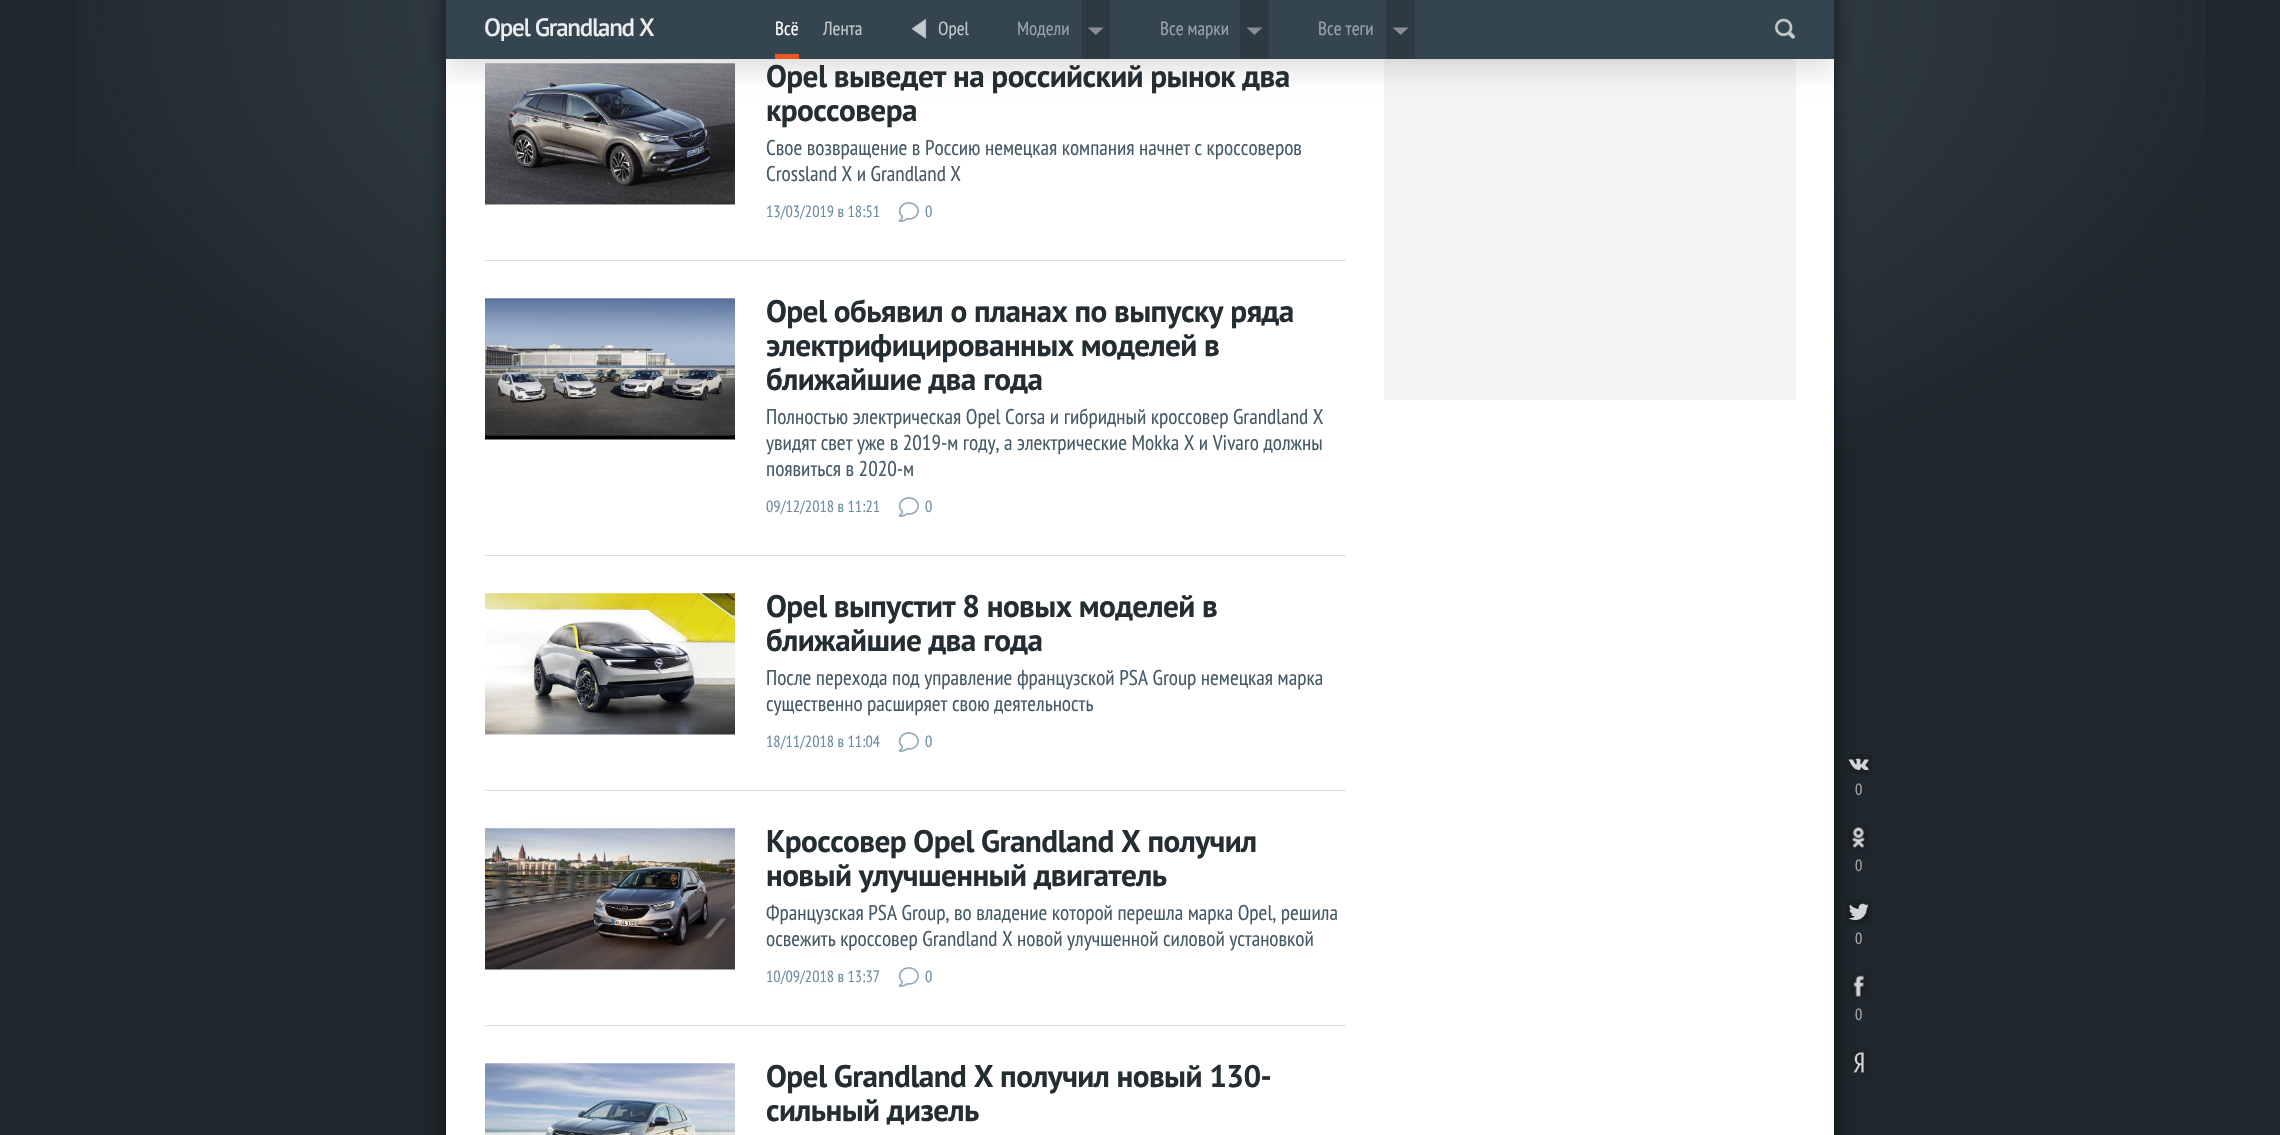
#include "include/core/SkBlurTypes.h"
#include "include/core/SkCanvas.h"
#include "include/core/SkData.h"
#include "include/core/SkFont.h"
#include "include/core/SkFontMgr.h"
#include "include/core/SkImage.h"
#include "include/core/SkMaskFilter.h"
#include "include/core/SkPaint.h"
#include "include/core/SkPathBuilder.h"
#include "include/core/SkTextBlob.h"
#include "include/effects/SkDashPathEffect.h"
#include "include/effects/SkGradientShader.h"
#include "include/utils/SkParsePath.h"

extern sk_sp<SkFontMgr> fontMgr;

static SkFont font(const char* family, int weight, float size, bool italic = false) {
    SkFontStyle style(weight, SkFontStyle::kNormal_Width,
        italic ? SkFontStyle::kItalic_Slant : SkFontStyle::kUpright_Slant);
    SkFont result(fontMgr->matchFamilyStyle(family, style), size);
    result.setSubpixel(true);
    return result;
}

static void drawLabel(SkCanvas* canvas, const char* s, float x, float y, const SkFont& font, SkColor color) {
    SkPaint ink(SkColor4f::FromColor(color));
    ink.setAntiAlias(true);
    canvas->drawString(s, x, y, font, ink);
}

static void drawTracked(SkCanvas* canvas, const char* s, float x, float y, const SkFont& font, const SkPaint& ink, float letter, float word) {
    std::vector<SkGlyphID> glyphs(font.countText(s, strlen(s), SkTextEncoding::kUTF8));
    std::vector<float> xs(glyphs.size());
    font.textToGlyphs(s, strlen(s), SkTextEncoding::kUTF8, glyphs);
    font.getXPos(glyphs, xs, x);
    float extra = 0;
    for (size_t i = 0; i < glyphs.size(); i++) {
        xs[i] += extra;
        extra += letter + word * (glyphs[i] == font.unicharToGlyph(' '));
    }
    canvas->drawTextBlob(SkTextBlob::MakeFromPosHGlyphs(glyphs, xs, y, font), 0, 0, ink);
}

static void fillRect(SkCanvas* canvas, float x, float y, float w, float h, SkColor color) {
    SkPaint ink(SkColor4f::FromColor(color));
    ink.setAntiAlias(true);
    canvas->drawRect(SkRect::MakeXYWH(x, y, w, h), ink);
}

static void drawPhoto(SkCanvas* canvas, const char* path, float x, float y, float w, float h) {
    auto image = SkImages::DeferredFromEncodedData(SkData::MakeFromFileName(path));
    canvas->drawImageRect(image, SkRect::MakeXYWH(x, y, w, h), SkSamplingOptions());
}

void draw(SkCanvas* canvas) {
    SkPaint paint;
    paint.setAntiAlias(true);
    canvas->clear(0xFF1F272C);
    drawPhoto(canvas, "assets/img1.png", 76, 0, 2130, 449);
    paint.setColor(0x80000000);
    paint.setMaskFilter(SkMaskFilter::MakeBlur(kNormal_SkBlurStyle, 9.5f));
    canvas->drawRect(SkRect::MakeXYWH(446, -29, 1388, 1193), paint);
    paint.setMaskFilter(nullptr);
    fillRect(canvas, 446, 59, 1388, 1076, 0xFFFFFFFF);
    drawPhoto(canvas, "assets/img7.png", 485, 63, 250, 142);
    fillRect(canvas, 1384, 59, 412, 341, 0xFFF5F4F3);
    paint.setColor(0x1F000000);
    paint.setMaskFilter(SkMaskFilter::MakeBlur(kNormal_SkBlurStyle, 12.5f));
    canvas->drawRect(SkRect::MakeXYWH(446, 13, 1388, 58), paint);
    paint.setMaskFilter(nullptr);
    fillRect(canvas, 446, 0, 1388, 59, 0xFF35454F);
    SkFont font1 = font("PT Sans", 600, 25);
    paint.setColor(0xFFEBEDEE);
    drawTracked(canvas, "Opel Grandland X", 484, 36, font1, paint, -1.25f, 0);
    fillRect(canvas, 775, 54, 24, 5, 0xFFEF5624);
    SkFont font2 = font("PT Sans Narrow", 400, 19);
    drawLabel(canvas, "Всё", 775, 35, font2, 0xFFFFFFFF);
    drawLabel(canvas, "Лента", 823, 35, font2, 0xFFC3C8CB);
    drawPhoto(canvas, "assets/img2.png", 911, 18, 16, 21);
    drawLabel(canvas, "Opel", 938, 35, font2, 0xFFC3C8CB);
    drawPhoto(canvas, "assets/img3.png", 1081, 0, 29, 59);
    drawLabel(canvas, "Модели", 1017, 35, font2, 0xFF9AA2A7);
    drawPhoto(canvas, "assets/img4.png", 1240, 0, 29, 59);
    drawLabel(canvas, "Все марки", 1160, 35, font2, 0xFF9AA2A7);
    drawPhoto(canvas, "assets/img5.png", 1386, 0, 29, 59);
    drawLabel(canvas, "Все теги", 1318, 35, font2, 0xFF9AA2A7);
    drawPhoto(canvas, "assets/img6.png", 1775, 18, 20, 21);
    fillRect(canvas, 485, 260, 861, 1, 0xFFDAE1E4);
    SkFont font3 = font("PT Sans", 700, 31.25f);
    paint.setColor(0xFF242D31);
    drawTracked(canvas, "Opel выведет на российский рынок два", 766, 87, font3, paint, -0.6f, 0);
    drawTracked(canvas, "кроссовера", 766, 121, font3, paint, -0.6f, 0);
    SkFont font4 = font("PT Sans Narrow", 400, 21.25f);
    drawLabel(canvas, "Свое возвращение в Россию немецкая компания начнет с кроссоверов", 766, 155, font4, 0xFF455A64);
    drawLabel(canvas, "Crossland X и Grandland X", 766, 181, font4, 0xFF455A64);
    SkFont font5 = font("PT Sans Narrow", 400, 16.25f);
    drawLabel(canvas, "13/03/2019 в 18:51", 766, 217, font5, 0xFF6D8C9C);
    drawPhoto(canvas, "assets/img8.png", 898, 202, 21, 20);
    drawLabel(canvas, "0", 925, 217, font5, 0xFF6D8C9C);
    fillRect(canvas, 485, 555, 861, 1, 0xFFDAE1E4);
    drawPhoto(canvas, "assets/img9.png", 485, 298, 250, 142);
    drawTracked(canvas, "Opel обьявил о планах по выпуску ряда", 766, 322, font3, paint, -0.6f, 0);
    drawTracked(canvas, "электрифицированных моделей в", 766, 356, font3, paint, -0.6f, 0);
    drawTracked(canvas, "ближайшие два года", 766, 390, font3, paint, -0.6f, 0);
    drawLabel(canvas, "Полностью электрическая Opel Corsa и гибридный кроссовер Grandland X", 766, 424, font4, 0xFF455A64);
    drawLabel(canvas, "увидят свет уже в 2019-м году, а электрические Mokka X и Vivaro должны", 766, 450, font4, 0xFF455A64);
    drawLabel(canvas, "появиться в 2020-м", 766, 476, font4, 0xFF455A64);
    drawLabel(canvas, "09/12/2018 в 11:21", 766, 512, font5, 0xFF6D8C9C);
    drawPhoto(canvas, "assets/img8.png", 898, 497, 21, 20);
    drawLabel(canvas, "0", 925, 512, font5, 0xFF6D8C9C);
    fillRect(canvas, 485, 790, 861, 1, 0xFFDAE1E4);
    drawPhoto(canvas, "assets/img10.png", 485, 593, 250, 142);
    drawTracked(canvas, "Opel выпустит 8 новых моделей в", 766, 617, font3, paint, -0.6f, 0);
    drawTracked(canvas, "ближайшие два года", 766, 651, font3, paint, -0.6f, 0);
    drawLabel(canvas, "После перехода под управление французской PSA Group немецкая марка", 766, 685, font4, 0xFF455A64);
    drawLabel(canvas, "существенно расширяет свою деятельность", 766, 711, font4, 0xFF455A64);
    drawLabel(canvas, "18/11/2018 в 11:04", 766, 747, font5, 0xFF6D8C9C);
    drawPhoto(canvas, "assets/img8.png", 898, 732, 21, 20);
    drawLabel(canvas, "0", 925, 747, font5, 0xFF6D8C9C);
    fillRect(canvas, 485, 1025, 861, 1, 0xFFDAE1E4);
    drawPhoto(canvas, "assets/img11.png", 485, 828, 250, 142);
    drawTracked(canvas, "Кроссовер Opel Grandland X получил", 766, 852, font3, paint, -0.6f, 0);
    drawTracked(canvas, "новый улучшенный двигатель", 766, 886, font3, paint, -0.6f, 0);
    drawLabel(canvas, "Французская PSA Group, во владение которой перешла марка Opel, решила", 766, 920, font4, 0xFF455A64);
    drawLabel(canvas, "освежить кроссовер Grandland X новой улучшенной силовой установкой", 766, 946, font4, 0xFF455A64);
    drawLabel(canvas, "10/09/2018 в 13:37", 766, 982, font5, 0xFF6D8C9C);
    drawPhoto(canvas, "assets/img8.png", 898, 967, 21, 20);
    drawLabel(canvas, "0", 925, 982, font5, 0xFF6D8C9C);
    drawPhoto(canvas, "assets/img12.png", 485, 1063, 250, 72);
    drawTracked(canvas, "Opel Grandland X получил новый 130-", 766, 1087, font3, paint, -0.6f, 0);
    drawTracked(canvas, "сильный дизель", 766, 1121, font3, paint, -0.6f, 0);
    drawPhoto(canvas, "assets/img13.png", 1847, 754, 25, 21);
    drawLabel(canvas, "0", 1855, 795, font5, 0xFFA5A9AB);
    drawPhoto(canvas, "assets/img14.png", 1848, 825, 21, 25);
    drawLabel(canvas, "0", 1855, 871, font5, 0xFFA5A9AB);
    drawPhoto(canvas, "assets/img15.png", 1845, 899, 27, 26);
    drawLabel(canvas, "0", 1855, 944, font5, 0xFFA5A9AB);
    drawPhoto(canvas, "assets/img16.png", 1850, 974, 18, 23);
    drawLabel(canvas, "0", 1855, 1020, font5, 0xFFA5A9AB);
    drawPhoto(canvas, "assets/img17.png", 1851, 1051, 18, 23);
}
